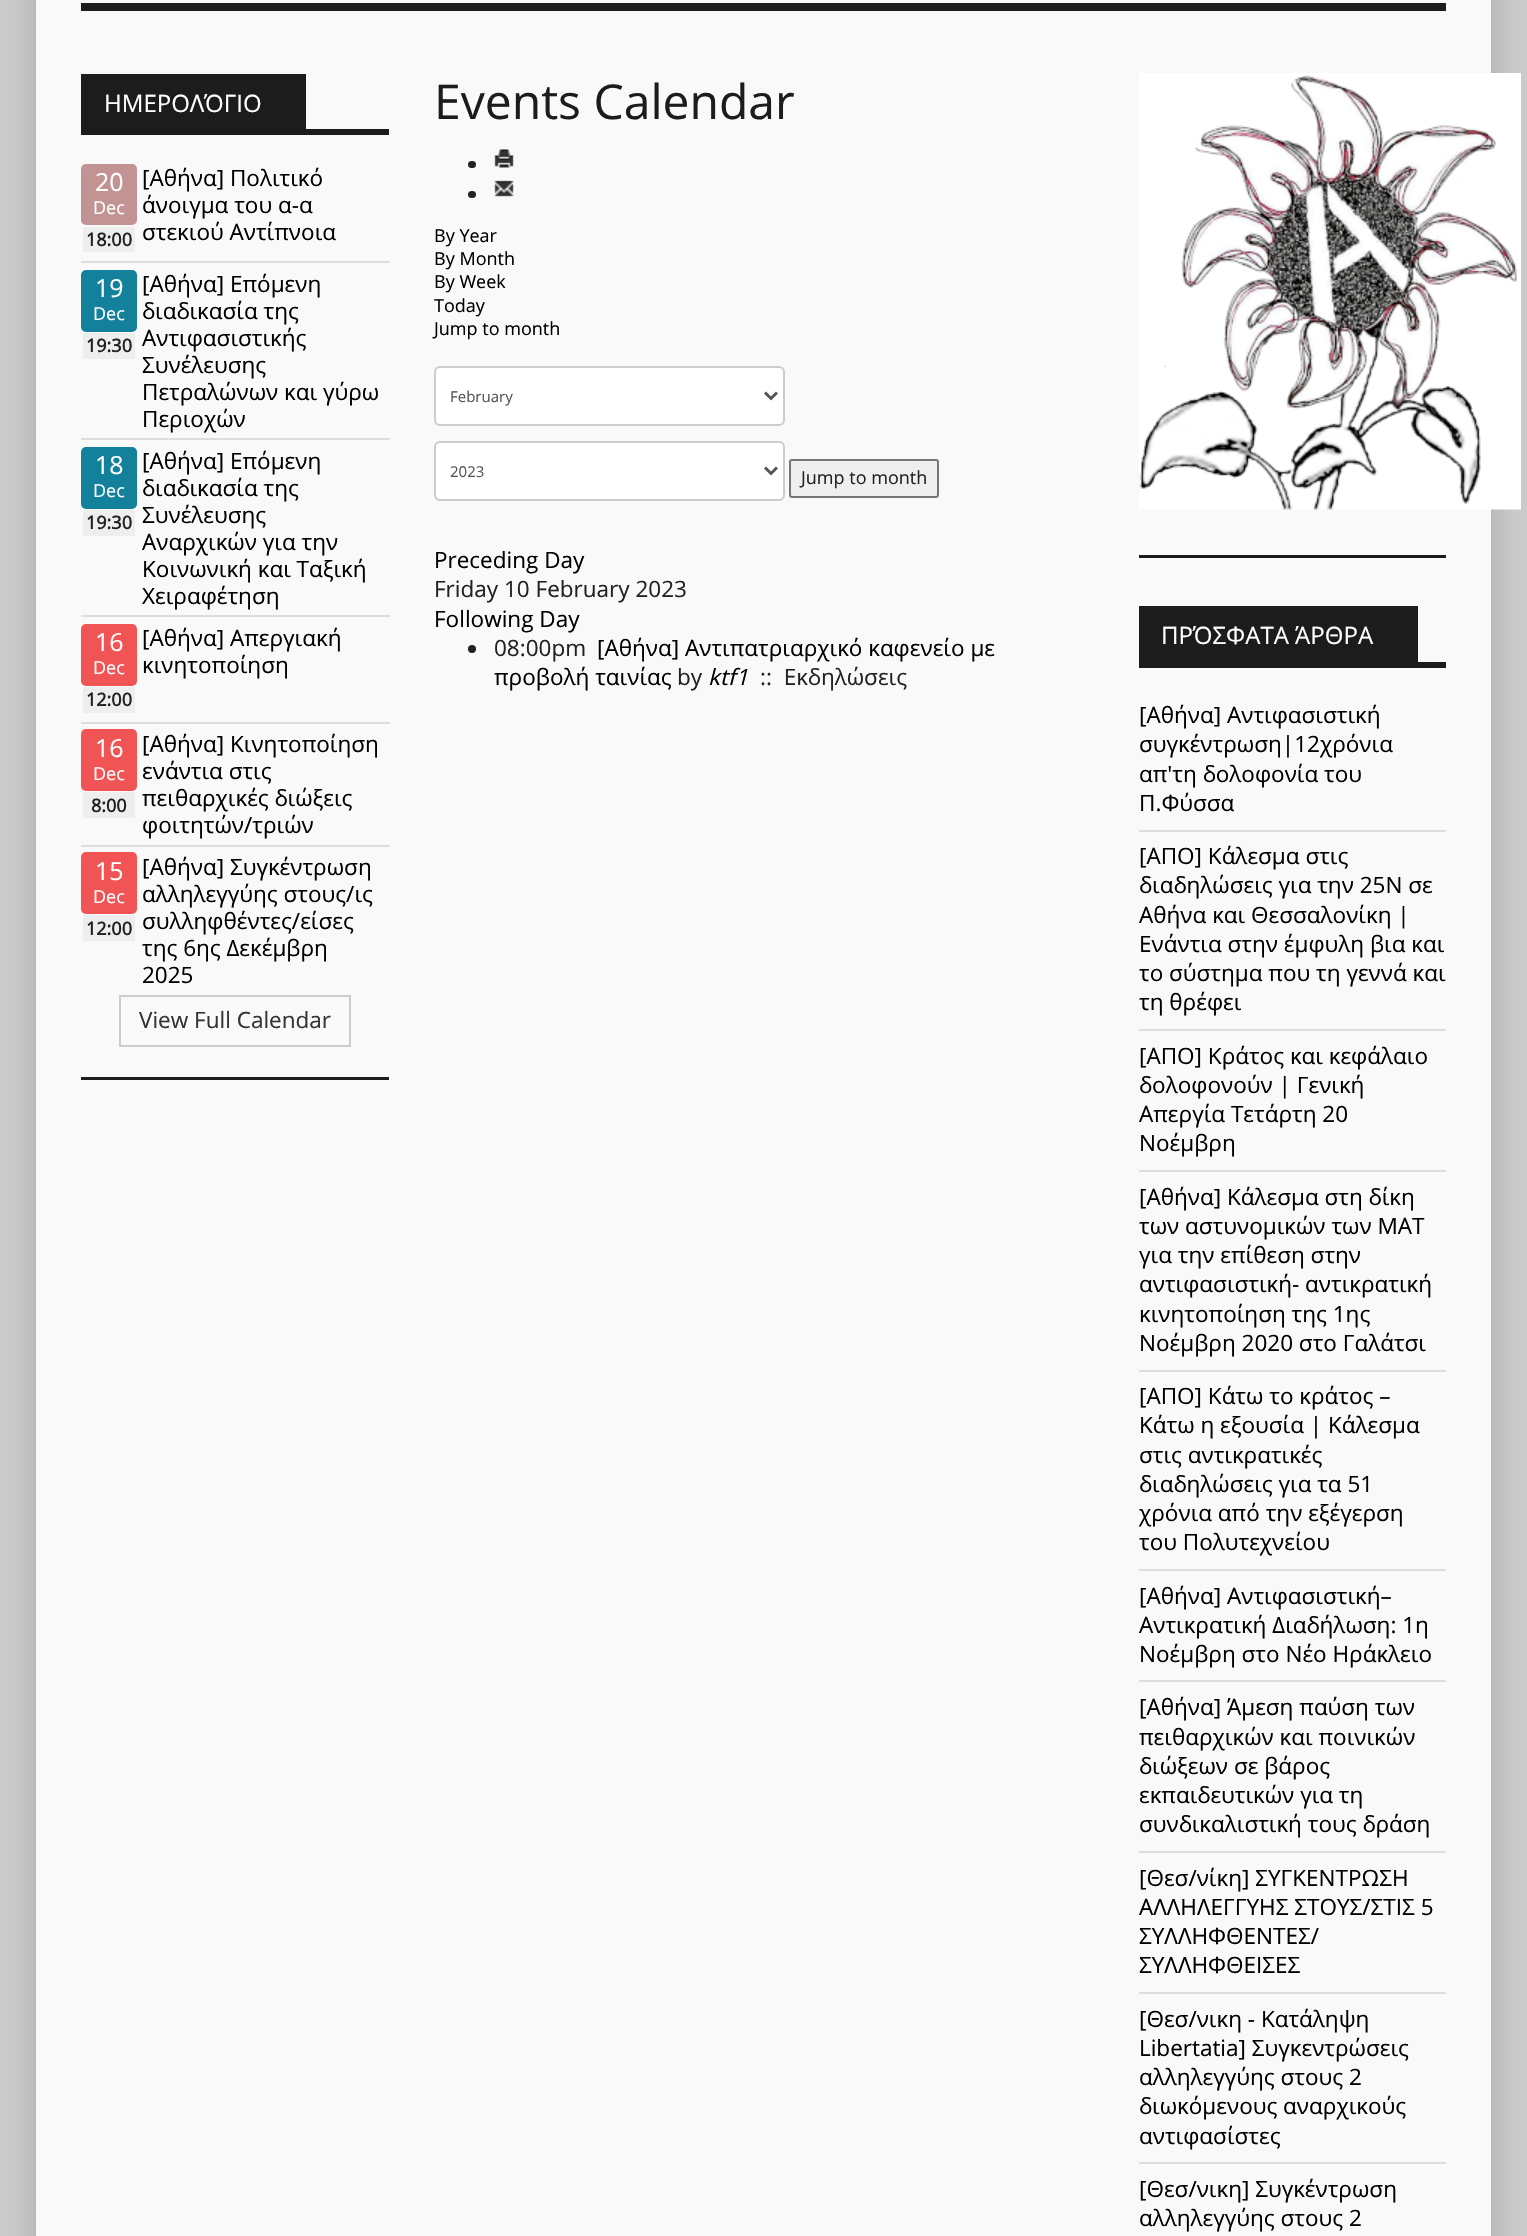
#include "include/core/SkBlurTypes.h"
#include "include/core/SkCanvas.h"
#include "include/core/SkData.h"
#include "include/core/SkFont.h"
#include "include/core/SkFontMgr.h"
#include "include/core/SkImage.h"
#include "include/core/SkMaskFilter.h"
#include "include/core/SkPaint.h"
#include "include/core/SkPathBuilder.h"
#include "include/core/SkTextBlob.h"
#include "include/effects/SkDashPathEffect.h"
#include "include/effects/SkGradientShader.h"
#include "include/utils/SkParsePath.h"

extern sk_sp<SkFontMgr> fontMgr;

static SkFont font(const char* family, int weight, float size, bool italic = false) {
    SkFontStyle style(weight, SkFontStyle::kNormal_Width,
        italic ? SkFontStyle::kItalic_Slant : SkFontStyle::kUpright_Slant);
    SkFont result(fontMgr->matchFamilyStyle(family, style), size);
    result.setSubpixel(true);
    return result;
}

static void drawLabel(SkCanvas* canvas, const char* s, float x, float y, const SkFont& font, SkColor color) {
    SkPaint ink(SkColor4f::FromColor(color));
    ink.setAntiAlias(true);
    canvas->drawString(s, x, y, font, ink);
}

static void fillRect(SkCanvas* canvas, float x, float y, float w, float h, SkColor color) {
    SkPaint ink(SkColor4f::FromColor(color));
    ink.setAntiAlias(true);
    canvas->drawRect(SkRect::MakeXYWH(x, y, w, h), ink);
}

static void fillRRect(SkCanvas* canvas, float x, float y, float w, float h, float radius, SkColor color) {
    SkPaint ink(SkColor4f::FromColor(color));
    ink.setAntiAlias(true);
    canvas->drawRoundRect(SkRect::MakeXYWH(x, y, w, h), radius, radius, ink);
}

static void drawPhoto(SkCanvas* canvas, const char* path, float x, float y, float w, float h) {
    auto image = SkImages::DeferredFromEncodedData(SkData::MakeFromFileName(path));
    canvas->drawImageRect(image, SkRect::MakeXYWH(x, y, w, h), SkSamplingOptions());
}

static SkPath parsePath(const char* data, bool evenOdd = false) {
    SkPath result = *SkParsePath::FromSVGString(data);
    if (evenOdd) result.setFillType(SkPathFillType::kEvenOdd);
    return result;
}

void draw(SkCanvas* canvas) {
    SkPaint paint;
    paint.setAntiAlias(true);
    canvas->clear(0xFFCCCCCC);
    paint.setColor(0x30000000);
    paint.setMaskFilter(SkMaskFilter::MakeBlur(kNormal_SkBlurStyle, 15));
    canvas->drawRect(SkRect::MakeXYWH(36, -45, 1455, 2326), paint);
    paint.setMaskFilter(nullptr);
    fillRect(canvas, 36, 0, 1455, 2236, 0xFFF9F9F9);
    fillRect(canvas, 81, 3, 1365, 8, 0xFF1C1C1C);
    fillRect(canvas, 81, 1077, 308, 3, 0xFF1C1C1C);
    fillRect(canvas, 81, 129, 308, 6, 0xFF1C1C1C);
    fillRect(canvas, 81, 74, 225, 55, 0xFF1C1C1C);
    SkFont font1 = font("Open Sans", 400, 24);
    drawLabel(canvas, "ΗΜΕΡΟΛΌΓΙΟ", 104, 112, font1, 0xFFFFFFFF);
    fillRRect(canvas, 81, 164, 56, 61, 5, 0xFFC29393);
    SkFont font2 = font("Open Sans", 400, 25);
    drawLabel(canvas, "20", 95, 191, font2, 0xFFFFFFFF);
    SkFont font3 = font("Open Sans", 400, 18);
    drawLabel(canvas, "Dec", 93, 214, font3, 0xFFFFFFFF);
    fillRect(canvas, 83, 227, 52, 25, 0xFFEEEEEE);
    SkFont font4 = font("Open Sans", 700, 18);
    drawLabel(canvas, "18:00", 86, 246, font4, 0xFF222222);
    SkFont font5 = font("Open Sans", 400, 22.5f);
    drawLabel(canvas, "[Αθήνα] Πολιτικό", 142, 186, font5, 0xFF000000);
    drawLabel(canvas, "άνοιγμα του α-α", 142, 213, font5, 0xFF000000);
    drawLabel(canvas, "στεκιού Αντίπνοια", 142, 240, font5, 0xFF000000);
    fillRect(canvas, 81, 261, 309, 2, 0xFFDDDDDD);
    fillRRect(canvas, 81, 270, 56, 62, 5, 0xFF13819C);
    drawLabel(canvas, "19", 95, 297, font2, 0xFFFFFFFF);
    drawLabel(canvas, "Dec", 93, 320, font3, 0xFFFFFFFF);
    fillRect(canvas, 83, 333, 52, 26, 0xFFEEEEEE);
    drawLabel(canvas, "19:30", 86, 352, font4, 0xFF222222);
    drawLabel(canvas, "[Αθήνα] Επόμενη", 142, 292, font5, 0xFF000000);
    drawLabel(canvas, "διαδικασία της", 142, 319, font5, 0xFF000000);
    drawLabel(canvas, "Αντιφασιστικής", 142, 346, font5, 0xFF000000);
    drawLabel(canvas, "Συνέλευσης", 142, 373, font5, 0xFF000000);
    drawLabel(canvas, "Πετραλώνων και γύρω", 142, 400, font5, 0xFF000000);
    drawLabel(canvas, "Περιοχών", 142, 427, font5, 0xFF000000);
    fillRect(canvas, 81, 438, 309, 2, 0xFFDDDDDD);
    fillRRect(canvas, 81, 447, 56, 62, 5, 0xFF13819C);
    drawLabel(canvas, "18", 95, 474, font2, 0xFFFFFFFF);
    drawLabel(canvas, "Dec", 93, 497, font3, 0xFFFFFFFF);
    fillRect(canvas, 83, 510, 52, 26, 0xFFEEEEEE);
    drawLabel(canvas, "19:30", 86, 529, font4, 0xFF222222);
    drawLabel(canvas, "[Αθήνα] Επόμενη", 142, 469, font5, 0xFF000000);
    drawLabel(canvas, "διαδικασία της", 142, 496, font5, 0xFF000000);
    drawLabel(canvas, "Συνέλευσης", 142, 523, font5, 0xFF000000);
    drawLabel(canvas, "Αναρχικών για την", 142, 550, font5, 0xFF000000);
    drawLabel(canvas, "Κοινωνική και Ταξική", 142, 577, font5, 0xFF000000);
    drawLabel(canvas, "Χειραφέτηση", 142, 604, font5, 0xFF000000);
    fillRect(canvas, 81, 615, 309, 2, 0xFFDDDDDD);
    fillRRect(canvas, 81, 624, 56, 62, 5, 0xFFF05454);
    drawLabel(canvas, "16", 95, 651, font2, 0xFFFFFFFF);
    drawLabel(canvas, "Dec", 93, 674, font3, 0xFFFFFFFF);
    fillRect(canvas, 83, 687, 52, 26, 0xFFEEEEEE);
    drawLabel(canvas, "12:00", 86, 706, font4, 0xFF222222);
    drawLabel(canvas, "[Αθήνα] Απεργιακή", 142, 646, font5, 0xFF000000);
    drawLabel(canvas, "κινητοποίηση", 142, 673, font5, 0xFF000000);
    fillRect(canvas, 81, 722, 309, 2, 0xFFDDDDDD);
    fillRRect(canvas, 81, 729, 56, 62, 5, 0xFFF05454);
    drawLabel(canvas, "16", 95, 757, font2, 0xFFFFFFFF);
    drawLabel(canvas, "Dec", 93, 780, font3, 0xFFFFFFFF);
    fillRect(canvas, 83, 792, 52, 26, 0xFFEEEEEE);
    drawLabel(canvas, "8:00", 91, 812, font4, 0xFF222222);
    drawLabel(canvas, "[Αθήνα] Κινητοποίηση", 142, 752, font5, 0xFF000000);
    drawLabel(canvas, "ενάντια στις", 142, 779, font5, 0xFF000000);
    drawLabel(canvas, "πειθαρχικές διώξεις", 142, 806, font5, 0xFF000000);
    drawLabel(canvas, "φοιτητών/τριών", 142, 833, font5, 0xFF000000);
    fillRect(canvas, 81, 845, 309, 2, 0xFFDDDDDD);
    fillRRect(canvas, 81, 852, 56, 62, 5, 0xFFF05454);
    drawLabel(canvas, "15", 95, 880, font2, 0xFFFFFFFF);
    drawLabel(canvas, "Dec", 93, 903, font3, 0xFFFFFFFF);
    fillRect(canvas, 83, 915, 52, 26, 0xFFEEEEEE);
    drawLabel(canvas, "12:00", 86, 935, font4, 0xFF222222);
    drawLabel(canvas, "[Αθήνα] Συγκέντρωση", 142, 875, font5, 0xFF000000);
    drawLabel(canvas, "αλληλεγγύης στους/ις", 142, 902, font5, 0xFF000000);
    drawLabel(canvas, "συλληφθέντες/είσες", 142, 929, font5, 0xFF000000);
    drawLabel(canvas, "της 6ης Δεκέμβρη", 142, 956, font5, 0xFF000000);
    drawLabel(canvas, "2025", 142, 983, font5, 0xFF000000);
    paint.setStroke(true);
    paint.setStrokeWidth(2);
    paint.setColor(0xFFCCCCCC);
    canvas->drawRect(SkRect::MakeXYWH(120, 996, 230, 50), paint);
    drawLabel(canvas, "View Full Calendar", 139, 1028, font5, 0xFF333333);
    SkFont font6 = font("Open Sans", 400, 48);
    drawLabel(canvas, "Events Calendar", 434, 119, font6, 0xFF1C1C1C);
    fillRRect(canvas, 468, 161, 8, 7, 3.5f, 0xFF222222);
    drawPhoto(canvas, "assets/img1.png", 494, 149, 20, 19);
    fillRRect(canvas, 468, 191, 8, 7, 3.5f, 0xFF222222);
    drawPhoto(canvas, "assets/img2.png", 494, 180, 20, 17);
    drawLabel(canvas, "By Year", 434, 242, font3, 0xFF000000);
    drawLabel(canvas, "By Month", 434, 265, font3, 0xFF000000);
    drawLabel(canvas, "By Week", 434, 288, font3, 0xFF000000);
    drawLabel(canvas, "Today", 434, 312, font3, 0xFF000000);
    drawLabel(canvas, "Jump to month", 434, 335, font3, 0xFF000000);
    paint.setStroke(false);
    paint.setColor(0xFFFFFFFF);
    canvas->drawRoundRect(SkRect::MakeXYWH(435, 367, 349, 58), 5, 5, paint);
    paint.setStroke(true);
    paint.setColor(0xFFCCCCCC);
    canvas->drawRoundRect(SkRect::MakeXYWH(435, 367, 349, 58), 5, 5, paint);
    paint.setStrokeWidth(3);
    paint.setColor(0xFF555555);
    canvas->drawPath(parsePath("M765 392.5L771 398.5L777 392.5"), paint);
    SkFont font7 = font("Open Sans", 400, 15);
    drawLabel(canvas, "February", 450, 402, font7, 0xFF555555);
    paint.setStroke(false);
    paint.setColor(0xFFFFFFFF);
    canvas->drawRoundRect(SkRect::MakeXYWH(435, 442, 349, 58), 5, 5, paint);
    paint.setStroke(true);
    paint.setStrokeWidth(2);
    paint.setColor(0xFFCCCCCC);
    canvas->drawRoundRect(SkRect::MakeXYWH(435, 442, 349, 58), 5, 5, paint);
    paint.setStrokeWidth(3);
    paint.setColor(0xFF555555);
    canvas->drawPath(parsePath("M765 467.5L771 473.5L777 467.5"), paint);
    drawLabel(canvas, "2023", 450, 477, font7, 0xFF555555);
    paint.setStroke(false);
    paint.setColor(0xFFEFEFEF);
    canvas->drawRoundRect(SkRect::MakeXYWH(790, 460, 148, 37), 2, 2, paint);
    paint.setStroke(true);
    paint.setStrokeWidth(2);
    paint.setColor(0xFF767676);
    canvas->drawRoundRect(SkRect::MakeXYWH(790, 460, 148, 37), 2, 2, paint);
    drawLabel(canvas, "Jump to month", 801, 484, font3, 0xFF222222);
    drawLabel(canvas, "Preceding Day", 434, 568, font5, 0xFF000000);
    drawLabel(canvas, "Friday 10 February 2023", 434, 597, font5, 0xFF222222);
    drawLabel(canvas, "Following Day", 434, 627, font5, 0xFF000000);
    paint.setStroke(false);
    paint.setColor(0xFF222222);
    canvas->drawCircle(472, 649, 4, paint);
    drawLabel(canvas, "08:00pm", 494, 656, font5, 0xFF222222);
    drawLabel(canvas, "[Αθήνα] Αντιπατριαρχικό καφενείο με", 597, 656, font5, 0xFF000000);
    drawLabel(canvas, "προβολή ταινίας", 494, 685, font5, 0xFF000000);
    drawLabel(canvas, "by", 677, 685, font5, 0xFF222222);
    SkFont font8 = font("Open Sans", 400, 22.5f, true);
    drawLabel(canvas, "ktf1", 708, 685, font8, 0xFF000000);
    drawLabel(canvas, "::  Εκδηλώσεις", 760, 685, font5, 0xFF222222);
    fillRect(canvas, 1139, 555, 307, 3, 0xFF1C1C1C);
    drawPhoto(canvas, "assets/img3.png", 1139, 73, 382, 437);
    fillRect(canvas, 1139, 662, 307, 6, 0xFF1C1C1C);
    fillRect(canvas, 1139, 606, 279, 56, 0xFF1C1C1C);
    drawLabel(canvas, "ΠΡΌΣΦΑΤΑ ΆΡΘΡΑ", 1161, 644, font1, 0xFFFFFFFF);
    fillRect(canvas, 1139, 830, 307, 2, 0xFFDDDDDD);
    drawLabel(canvas, "[Αθήνα] Αντιφασιστική", 1139, 723, font5, 0xFF000000);
    drawLabel(canvas, "συγκέντρωση|12χρόνια", 1139, 752, font5, 0xFF000000);
    drawLabel(canvas, "απ'τη δολοφονία του", 1139, 782, font5, 0xFF000000);
    drawLabel(canvas, "Π.Φύσσα", 1139, 811, font5, 0xFF000000);
    fillRect(canvas, 1139, 1029, 307, 2, 0xFFDDDDDD);
    drawLabel(canvas, "[ΑΠΟ] Κάλεσμα στις", 1139, 864, font5, 0xFF000000);
    drawLabel(canvas, "διαδηλώσεις για την 25Ν σε", 1139, 893, font5, 0xFF000000);
    drawLabel(canvas, "Αθήνα και Θεσσαλονίκη |", 1139, 923, font5, 0xFF000000);
    drawLabel(canvas, "Ενάντια στην έμφυλη βια και", 1139, 952, font5, 0xFF000000);
    drawLabel(canvas, "το σύστημα που τη γεννά και", 1139, 981, font5, 0xFF000000);
    drawLabel(canvas, "τη θρέφει", 1139, 1010, font5, 0xFF000000);
    fillRect(canvas, 1139, 1170, 307, 2, 0xFFDDDDDD);
    drawLabel(canvas, "[ΑΠΟ] Κράτος και κεφάλαιο", 1139, 1064, font5, 0xFF000000);
    drawLabel(canvas, "δολοφονούν | Γενική", 1139, 1093, font5, 0xFF000000);
    drawLabel(canvas, "Απεργία Τετάρτη 20", 1139, 1122, font5, 0xFF000000);
    drawLabel(canvas, "Νοέμβρη", 1139, 1151, font5, 0xFF000000);
    fillRect(canvas, 1139, 1370, 307, 2, 0xFFDDDDDD);
    drawLabel(canvas, "[Αθήνα] Κάλεσμα στη δίκη", 1139, 1205, font5, 0xFF000000);
    drawLabel(canvas, "των αστυνομικών των ΜΑΤ", 1139, 1234, font5, 0xFF000000);
    drawLabel(canvas, "για την επίθεση στην", 1139, 1263, font5, 0xFF000000);
    drawLabel(canvas, "αντιφασιστική- αντικρατική", 1139, 1292, font5, 0xFF000000);
    drawLabel(canvas, "κινητοποίηση της 1ης", 1139, 1322, font5, 0xFF000000);
    drawLabel(canvas, "Νοέμβρη 2020 στο Γαλάτσι", 1139, 1351, font5, 0xFF000000);
    fillRect(canvas, 1139, 1569, 307, 2, 0xFFDDDDDD);
    drawLabel(canvas, "[ΑΠΟ] Κάτω το κράτος –", 1139, 1404, font5, 0xFF000000);
    drawLabel(canvas, "Κάτω η εξουσία | Κάλεσμα", 1139, 1433, font5, 0xFF000000);
    drawLabel(canvas, "στις αντικρατικές", 1139, 1463, font5, 0xFF000000);
    drawLabel(canvas, "διαδηλώσεις για τα 51", 1139, 1492, font5, 0xFF000000);
    drawLabel(canvas, "χρόνια από την εξέγερση", 1139, 1521, font5, 0xFF000000);
    drawLabel(canvas, "του Πολυτεχνείου", 1139, 1550, font5, 0xFF000000);
    fillRect(canvas, 1139, 1680, 307, 2, 0xFFDDDDDD);
    drawLabel(canvas, "[Αθήνα] Αντιφασιστική–", 1139, 1604, font5, 0xFF000000);
    drawLabel(canvas, "Αντικρατική Διαδήλωση: 1η", 1139, 1633, font5, 0xFF000000);
    drawLabel(canvas, "Νοέμβρη στο Νέο Ηράκλειο", 1139, 1662, font5, 0xFF000000);
    fillRect(canvas, 1139, 1851, 307, 2, 0xFFDDDDDD);
    drawLabel(canvas, "[Αθήνα] Άμεση παύση των", 1139, 1715, font5, 0xFF000000);
    drawLabel(canvas, "πειθαρχικών και ποινικών", 1139, 1745, font5, 0xFF000000);
    drawLabel(canvas, "διώξεων σε βάρος", 1139, 1774, font5, 0xFF000000);
    drawLabel(canvas, "εκπαιδευτικών για τη", 1139, 1803, font5, 0xFF000000);
    drawLabel(canvas, "συνδικαλιστική τους δράση", 1139, 1832, font5, 0xFF000000);
    fillRect(canvas, 1139, 1992, 307, 2, 0xFFDDDDDD);
    drawLabel(canvas, "[Θεσ/νίκη] ΣΥΓΚΕΝΤΡΩΣΗ", 1139, 1886, font5, 0xFF000000);
    drawLabel(canvas, "ΑΛΛΗΛΕΓΓΥΗΣ ΣΤΟΥΣ/ΣΤΙΣ 5", 1139, 1915, font5, 0xFF000000);
    drawLabel(canvas, "ΣΥΛΛΗΦΘΕΝΤΕΣ/", 1139, 1944, font5, 0xFF000000);
    drawLabel(canvas, "ΣΥΛΛΗΦΘΕΙΣΕΣ", 1139, 1973, font5, 0xFF000000);
    fillRect(canvas, 1139, 2162, 307, 2, 0xFFDDDDDD);
    drawLabel(canvas, "[Θεσ/νικη - Κατάληψη", 1139, 2027, font5, 0xFF000000);
    drawLabel(canvas, "Libertatia] Συγκεντρώσεις", 1139, 2056, font5, 0xFF000000);
    drawLabel(canvas, "αλληλεγγύης στους 2", 1139, 2085, font5, 0xFF000000);
    drawLabel(canvas, "διωκόμενους αναρχικούς", 1139, 2114, font5, 0xFF000000);
    drawLabel(canvas, "αντιφασίστες", 1139, 2144, font5, 0xFF000000);
    drawLabel(canvas, "[Θεσ/νικη] Συγκέντρωση", 1139, 2197, font5, 0xFF000000);
    drawLabel(canvas, "αλληλεγγύης στους 2", 1139, 2226, font5, 0xFF000000);
}
